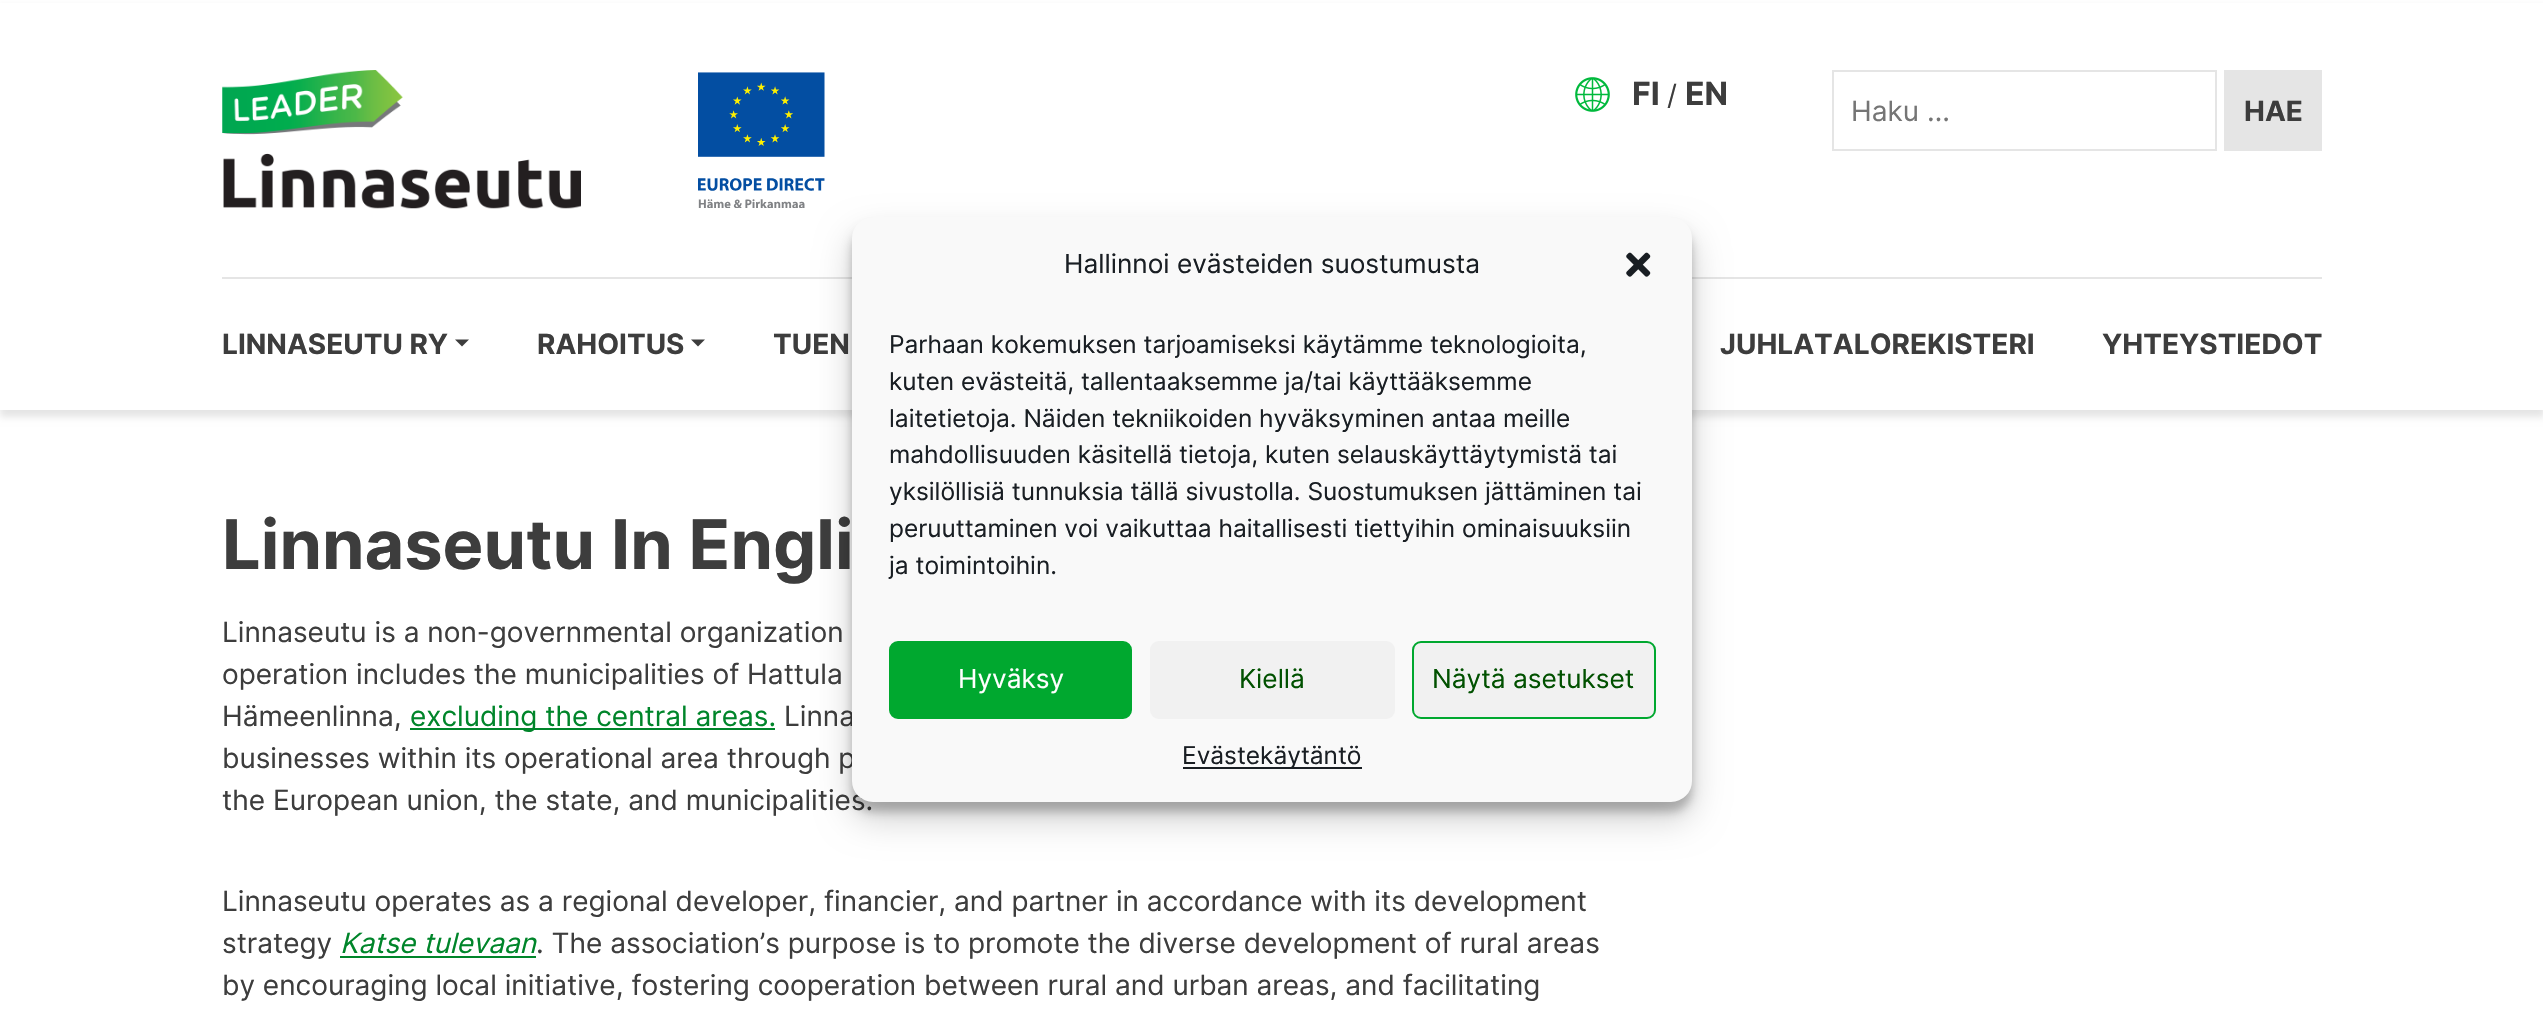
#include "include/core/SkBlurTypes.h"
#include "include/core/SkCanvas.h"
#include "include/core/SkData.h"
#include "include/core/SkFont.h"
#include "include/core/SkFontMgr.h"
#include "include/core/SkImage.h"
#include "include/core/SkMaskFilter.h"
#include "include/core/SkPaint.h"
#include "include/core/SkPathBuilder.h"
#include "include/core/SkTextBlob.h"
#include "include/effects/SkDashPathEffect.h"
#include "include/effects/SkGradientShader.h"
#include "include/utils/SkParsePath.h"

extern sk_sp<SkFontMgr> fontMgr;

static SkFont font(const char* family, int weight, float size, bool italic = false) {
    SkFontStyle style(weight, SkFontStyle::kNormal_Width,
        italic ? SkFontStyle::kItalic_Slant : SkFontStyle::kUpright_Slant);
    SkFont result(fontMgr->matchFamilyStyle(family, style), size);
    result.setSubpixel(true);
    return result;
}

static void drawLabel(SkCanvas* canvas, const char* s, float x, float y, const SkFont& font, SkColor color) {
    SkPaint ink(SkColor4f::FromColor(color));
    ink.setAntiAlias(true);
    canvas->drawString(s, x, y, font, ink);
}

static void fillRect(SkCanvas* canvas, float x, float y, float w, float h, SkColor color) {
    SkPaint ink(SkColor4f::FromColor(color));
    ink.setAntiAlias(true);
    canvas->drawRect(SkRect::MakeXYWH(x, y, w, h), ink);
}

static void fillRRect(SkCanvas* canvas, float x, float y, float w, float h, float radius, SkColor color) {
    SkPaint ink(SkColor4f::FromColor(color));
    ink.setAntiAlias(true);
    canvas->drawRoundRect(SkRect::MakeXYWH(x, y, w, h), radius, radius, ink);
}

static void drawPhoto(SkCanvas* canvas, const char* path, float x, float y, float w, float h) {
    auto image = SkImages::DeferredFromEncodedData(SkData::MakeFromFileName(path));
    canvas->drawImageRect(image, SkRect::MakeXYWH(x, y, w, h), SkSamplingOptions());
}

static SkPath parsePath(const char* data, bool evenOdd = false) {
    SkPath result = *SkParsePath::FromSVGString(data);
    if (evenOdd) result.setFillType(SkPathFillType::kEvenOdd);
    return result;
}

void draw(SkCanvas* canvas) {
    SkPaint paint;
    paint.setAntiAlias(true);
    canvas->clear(0xFFFFFFFF);
    paint.setColor(0x1A000000);
    paint.setMaskFilter(SkMaskFilter::MakeBlur(kNormal_SkBlurStyle, 3.5f));
    canvas->drawRect(SkRect::MakeXYWH(0, 7, 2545, 410), paint);
    paint.setMaskFilter(nullptr);
    fillRect(canvas, 0, 3, 2543, 407, 0xFFFFFFFF);
    fillRect(canvas, 222, 277, 2100, 2, 0xFFE5E5E5);
    drawPhoto(canvas, "assets/img1.png", 222, 70, 359, 139);
    drawPhoto(canvas, "assets/img2.png", 698, 72, 127, 136);
    drawPhoto(canvas, "assets/img3.png", 1575, 77, 35, 35);
    SkFont font1 = font("Inter", 700, 32);
    drawLabel(canvas, "FI", 1632, 105, font1, 0xFF3D3D3D);
    SkFont font2 = font("Inter", 400, 28);
    drawLabel(canvas, "/", 1667, 105, font2, 0xFF3D3D3D);
    drawLabel(canvas, "EN", 1685, 105, font1, 0xFF3D3D3D);
    paint.setStroke(true);
    paint.setStrokeWidth(2);
    paint.setColor(0xFFE5E5E5);
    canvas->drawRect(SkRect::MakeXYWH(1833, 71, 383, 79), paint);
    drawLabel(canvas, "Haku …", 1851, 121, font2, 0xFF757575);
    fillRect(canvas, 2224, 70, 98, 81, 0xFFE5E5E5);
    SkFont font3 = font("Inter", 700, 28);
    drawLabel(canvas, "HAE", 2244, 121, font3, 0xFF3D3D3D);
    drawLabel(canvas, "LINNASEUTU RY", 222, 354, font3, 0xFF3D3D3D);
    paint.setStroke(false);
    paint.setColor(0xFF3D3D3D);
    canvas->drawPath(parsePath("M455 339.5H469L462 346.5Z"), paint);
    drawLabel(canvas, "RAHOITUS", 537, 354, font3, 0xFF3D3D3D);
    canvas->drawPath(parsePath("M691 339.5H705L698 346.5Z"), paint);
    drawLabel(canvas, "TUEN", 773, 354, font3, 0xFF3D3D3D);
    drawLabel(canvas, "JUHLATALOREKISTERI", 1720, 354, font3, 0xFF3D3D3D);
    drawLabel(canvas, "YHTEYSTIEDOT", 2102, 354, font3, 0xFF3D3D3D);
    SkFont font4 = font("Inter", 700, 68.4f);
    drawLabel(canvas, "Linnaseutu In Engli", 222, 569, font4, 0xFF3D3D3D);
    drawLabel(canvas, "Linnaseutu is a non-governmental organization", 222, 642, font2, 0xFF3D3D3D);
    drawLabel(canvas, "operation includes the municipalities of Hattula", 222, 684, font2, 0xFF3D3D3D);
    drawLabel(canvas, "Hämeenlinna,", 222, 726, font2, 0xFF3D3D3D);
    fillRect(canvas, 410, 728, 365, 2, 0xFF00852A);
    drawLabel(canvas, "excluding the central areas.", 410, 726, font2, 0xFF00852A);
    drawLabel(canvas, "Linna", 784, 726, font2, 0xFF3D3D3D);
    drawLabel(canvas, "businesses within its operational area through p", 222, 768, font2, 0xFF3D3D3D);
    drawLabel(canvas, "the European union, the state, and municipalities.", 222, 810, font2, 0xFF3D3D3D);
    drawLabel(canvas, "Linnaseutu operates as a regional developer, financier, and partner in accordance with its development", 222, 911, font2, 0xFF3D3D3D);
    drawLabel(canvas, "strategy", 222, 953, font2, 0xFF3D3D3D);
    SkFont font5 = font("Inter", 400, 28, true);
    drawLabel(canvas, "Katse tulevaan", 340, 953, font5, 0xFF00852A);
    fillRect(canvas, 340, 956, 196, 2, 0xFF00852A);
    drawLabel(canvas, ". The association’s purpose is to promote the diverse development of rural areas", 536, 953, font2, 0xFF3D3D3D);
    drawLabel(canvas, "by encouraging local initiative, fostering cooperation between rural and urban areas, and facilitating", 222, 995, font2, 0xFF3D3D3D);
    paint.setColor(0x3B000000);
    paint.setMaskFilter(SkMaskFilter::MakeBlur(kNormal_SkBlurStyle, 5));
    canvas->drawRoundRect(SkRect::MakeXYWH(852, 228, 840, 584), 21, 21, paint);
    paint.setMaskFilter(nullptr);
    paint.setColor(0x30000000);
    paint.setMaskFilter(SkMaskFilter::MakeBlur(kNormal_SkBlurStyle, 17.5f));
    canvas->drawRoundRect(SkRect::MakeXYWH(852, 235, 840, 584), 21, 21, paint);
    paint.setMaskFilter(nullptr);
    paint.setColor(0xFFF9F9F9);
    canvas->drawRoundRect(SkRect::MakeXYWH(853, 218, 838, 583), 20, 20, paint);
    paint.setStroke(true);
    canvas->drawRoundRect(SkRect::MakeXYWH(853, 218, 838, 583), 20, 20, paint);
    SkFont font6 = font("Inter", 400, 26.25f);
    drawLabel(canvas, "Hallinnoi evästeiden suostumusta", 1064, 273, font6, 0xFF191E23);
    drawPhoto(canvas, "assets/img4.png", 1626, 252, 25, 25);
    SkFont font7 = font("Inter", 400, 24.5f);
    drawLabel(canvas, "Parhaan kokemuksen tarjoamiseksi käytämme teknologioita,", 889, 353, font7, 0xFF191E23);
    drawLabel(canvas, "kuten evästeitä, tallentaaksemme ja/tai käyttääksemme", 889, 390, font7, 0xFF191E23);
    drawLabel(canvas, "laitetietoja. Näiden tekniikoiden hyväksyminen antaa meille", 889, 427, font7, 0xFF191E23);
    drawLabel(canvas, "mahdollisuuden käsitellä tietoja, kuten selauskäyttäytymistä tai", 889, 463, font7, 0xFF191E23);
    drawLabel(canvas, "yksilöllisiä tunnuksia tällä sivustolla. Suostumuksen jättäminen tai", 889, 500, font7, 0xFF191E23);
    drawLabel(canvas, "peruuttaminen voi vaikuttaa haitallisesti tiettyihin ominaisuuksiin", 889, 537, font7, 0xFF191E23);
    drawLabel(canvas, "ja toimintoihin.", 889, 574, font7, 0xFF191E23);
    paint.setStroke(false);
    paint.setColor(0xFF00A82F);
    canvas->drawRoundRect(SkRect::MakeXYWH(890, 642, 241, 76), 8, 8, paint);
    paint.setStroke(true);
    canvas->drawRoundRect(SkRect::MakeXYWH(890, 642, 241, 76), 8, 8, paint);
    drawLabel(canvas, "Hyväksy", 958, 688, font6, 0xFFFFFFFF);
    fillRRect(canvas, 1150, 641, 245, 78, 9, 0xFFF1F1F1);
    drawLabel(canvas, "Kiellä", 1239, 688, font6, 0xFF015100);
    paint.setStroke(false);
    paint.setColor(0xFFF1F1F1);
    canvas->drawRoundRect(SkRect::MakeXYWH(1413, 642, 242, 76), 8, 8, paint);
    paint.setStroke(true);
    paint.setColor(0xFF00A82F);
    canvas->drawRoundRect(SkRect::MakeXYWH(1413, 642, 242, 76), 8, 8, paint);
    drawLabel(canvas, "Näytä asetukset", 1432, 688, font6, 0xFF015100);
    fillRect(canvas, 1183, 767, 179, 2, 0xFF191E23);
    drawLabel(canvas, "Evästekäytäntö", 1182, 764, font7, 0xFF191E23);
}
